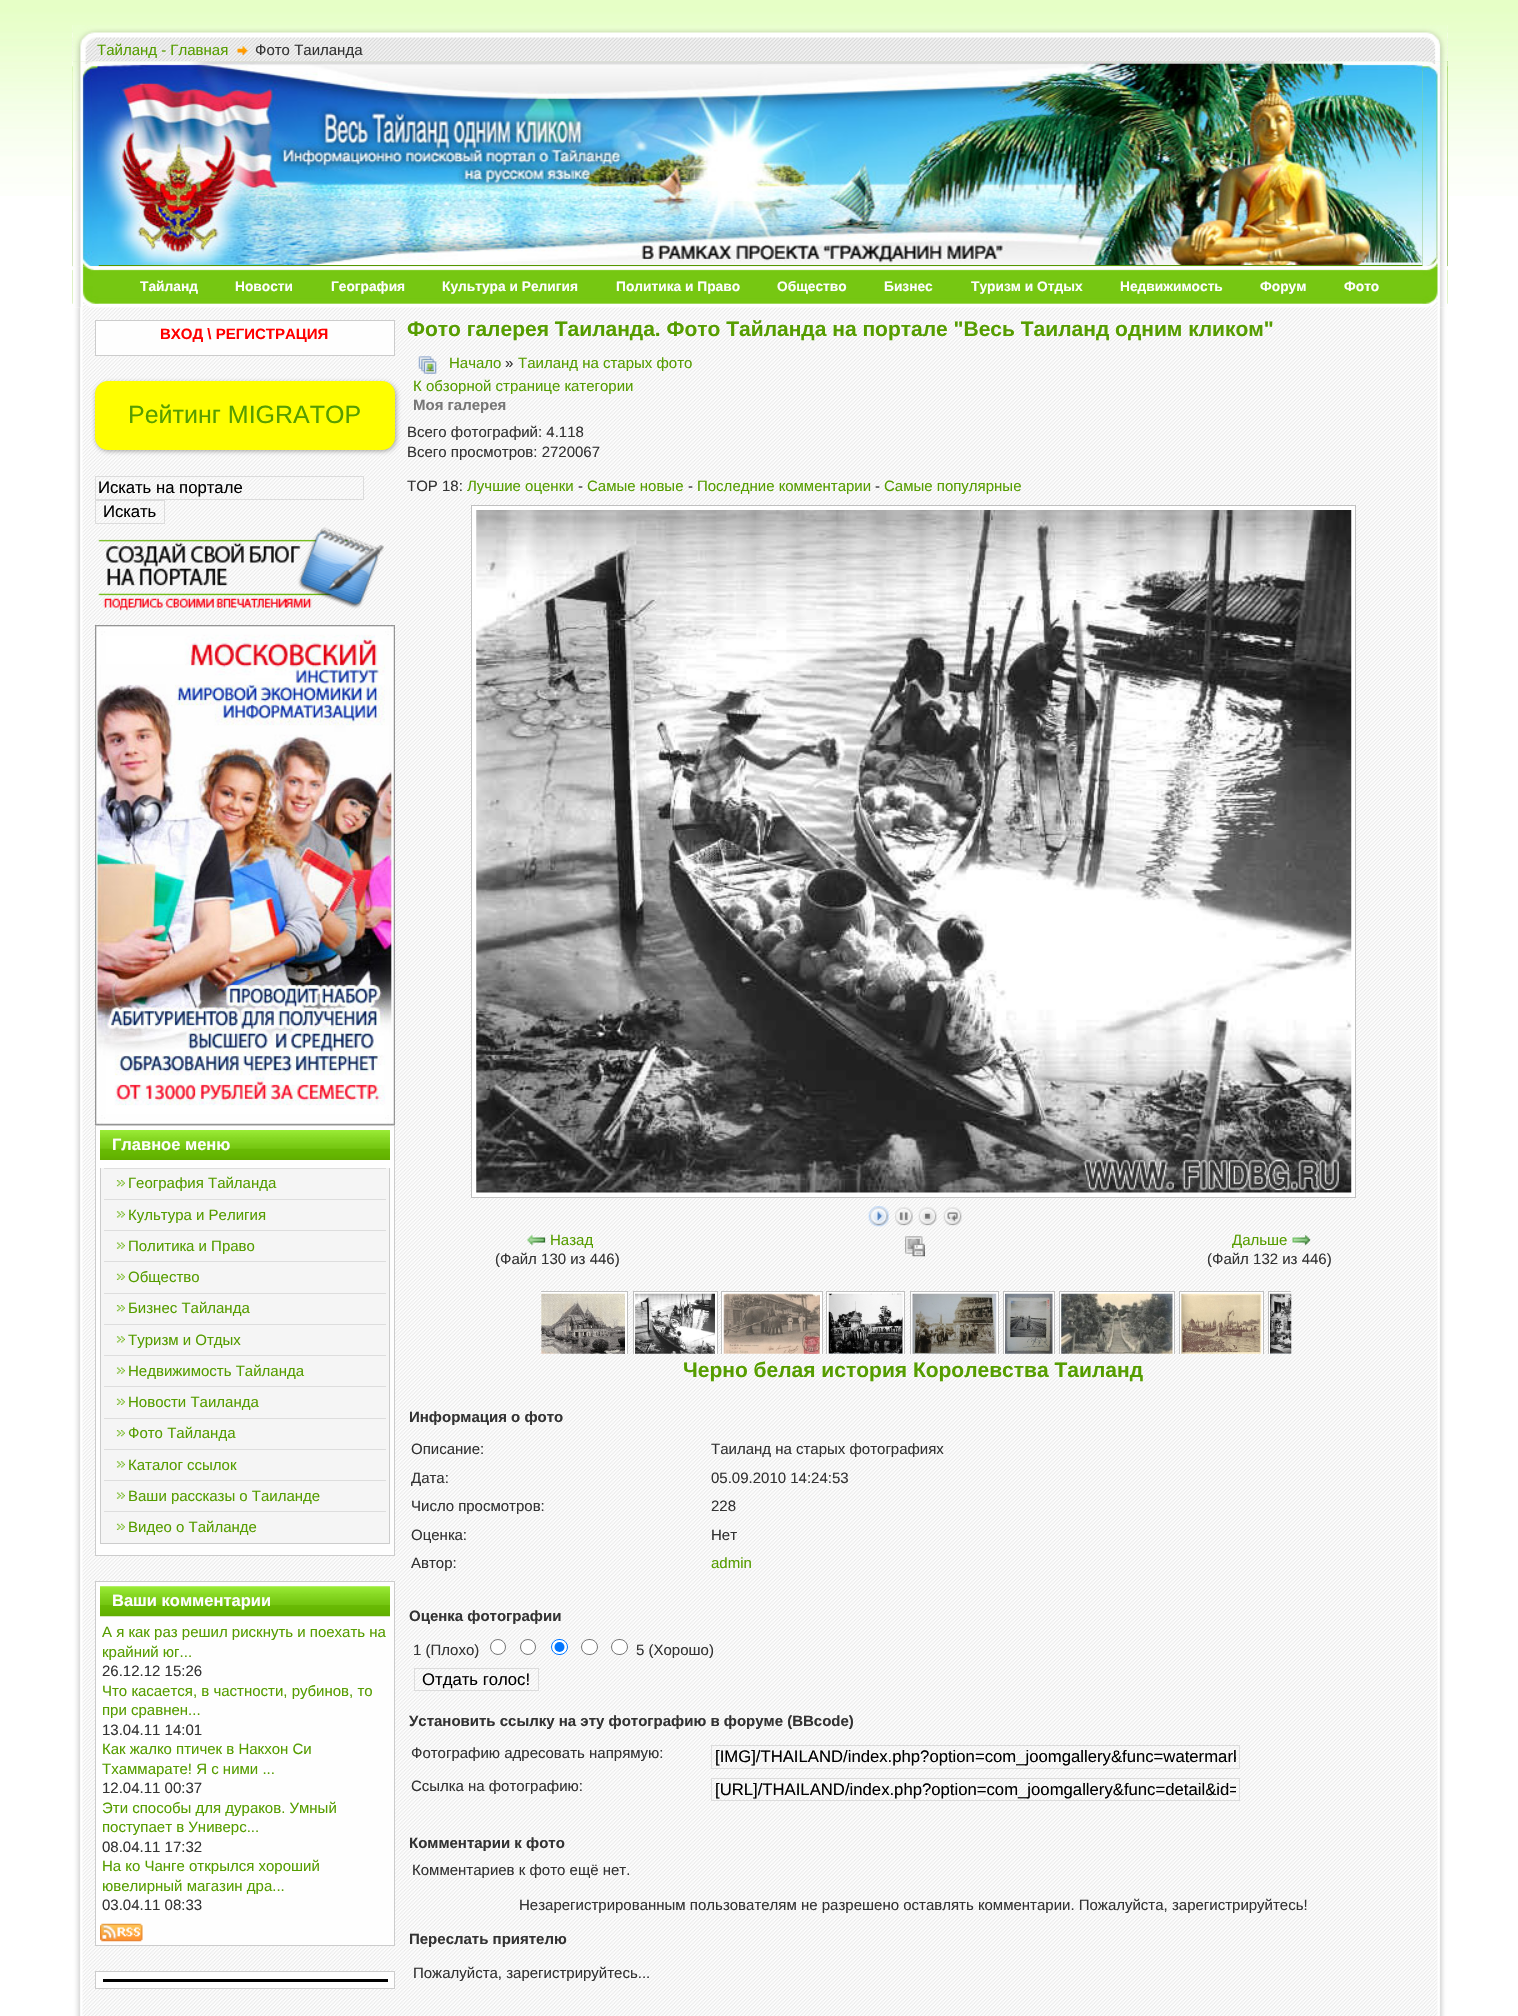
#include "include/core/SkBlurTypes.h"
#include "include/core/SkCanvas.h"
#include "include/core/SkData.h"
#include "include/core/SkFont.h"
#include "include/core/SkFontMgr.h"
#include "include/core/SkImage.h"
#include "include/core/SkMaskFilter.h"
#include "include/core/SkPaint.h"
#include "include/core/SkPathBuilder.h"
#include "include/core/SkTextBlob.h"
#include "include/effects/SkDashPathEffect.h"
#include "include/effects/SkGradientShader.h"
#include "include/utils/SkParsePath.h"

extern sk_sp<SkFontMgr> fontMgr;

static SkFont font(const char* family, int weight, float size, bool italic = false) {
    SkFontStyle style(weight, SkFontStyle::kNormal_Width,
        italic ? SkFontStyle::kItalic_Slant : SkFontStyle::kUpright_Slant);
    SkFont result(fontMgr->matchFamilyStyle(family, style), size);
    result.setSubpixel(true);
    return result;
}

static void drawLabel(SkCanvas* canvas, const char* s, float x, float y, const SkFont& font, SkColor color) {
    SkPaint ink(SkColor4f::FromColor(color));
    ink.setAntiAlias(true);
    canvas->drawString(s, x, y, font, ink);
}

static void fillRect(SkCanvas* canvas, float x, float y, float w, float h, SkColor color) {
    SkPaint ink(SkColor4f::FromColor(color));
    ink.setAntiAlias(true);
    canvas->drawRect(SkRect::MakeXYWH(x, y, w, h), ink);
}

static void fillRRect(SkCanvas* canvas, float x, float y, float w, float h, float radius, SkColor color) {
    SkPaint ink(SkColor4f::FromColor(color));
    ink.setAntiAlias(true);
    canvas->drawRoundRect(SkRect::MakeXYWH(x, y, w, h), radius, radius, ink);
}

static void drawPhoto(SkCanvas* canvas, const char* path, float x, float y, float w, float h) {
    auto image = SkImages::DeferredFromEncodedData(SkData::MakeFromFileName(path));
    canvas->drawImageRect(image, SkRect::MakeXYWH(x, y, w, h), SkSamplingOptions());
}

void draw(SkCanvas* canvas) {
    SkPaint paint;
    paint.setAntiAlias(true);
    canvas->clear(0xFFFFFFFF);
    drawPhoto(canvas, "assets/img1.png", 0, 0, 1518, 196);
    drawPhoto(canvas, "assets/img2.png", 72, 25, 18, 1991);
    drawPhoto(canvas, "assets/img3.png", 1431, 25, 17, 1991);
    drawPhoto(canvas, "assets/img4.png", 72, 25, 1376, 37);
    drawPhoto(canvas, "assets/img5.png", 72, 25, 26, 37);
    fillRect(canvas, 73, 61, 1375, 205, 0xFF569D00);
    drawPhoto(canvas, "assets/img8.png", 72, 61, 1376, 206);
    drawPhoto(canvas, "assets/img9.png", 1422, 61, 26, 206);
    drawPhoto(canvas, "assets/img10.png", 72, 61, 27, 206);
    drawPhoto(canvas, "assets/img11.png", 97, 61, 1326, 204);
    drawPhoto(canvas, "assets/img6.png", 1422, 25, 26, 37);
    SkFont font1 = font("Liberation Sans", 400, 15);
    drawLabel(canvas, "Тайланд - Главная", 97, 55, font1, 0xFF569D00);
    drawPhoto(canvas, "assets/img7.png", 237, 46, 11, 9);
    drawLabel(canvas, "Фото Таиланда", 255, 55, font1, 0xFF333333);
    drawPhoto(canvas, "assets/img12.png", 72, 266, 1376, 42);
    drawPhoto(canvas, "assets/img13.png", 1422, 266, 26, 42);
    drawPhoto(canvas, "assets/img14.png", 72, 266, 27, 42);
    SkFont font2 = font("Liberation Sans", 700, 13.75f);
    drawLabel(canvas, "Тайланд", 140, 291, font2, 0xFFFEFEFE);
    drawLabel(canvas, "Новости", 235, 291, font2, 0xFFFEFEFE);
    drawLabel(canvas, "География", 331, 291, font2, 0xFFFEFEFE);
    drawLabel(canvas, "Культура и Религия", 442, 291, font2, 0xFFFEFEFE);
    drawLabel(canvas, "Политика и Право", 616, 291, font2, 0xFFFEFEFE);
    drawLabel(canvas, "Общество", 777, 291, font2, 0xFFFEFEFE);
    drawLabel(canvas, "Бизнес", 884, 291, font2, 0xFFFEFEFE);
    drawLabel(canvas, "Туризм и Отдых", 971, 291, font2, 0xFFFEFEFE);
    drawLabel(canvas, "Недвижимость", 1120, 291, font2, 0xFFFEFEFE);
    drawLabel(canvas, "Форум", 1260, 291, font2, 0xFFFEFEFE);
    drawLabel(canvas, "Фото", 1344, 291, font2, 0xFFFEFEFE);
    drawPhoto(canvas, "assets/img15.png", 82, 307, 1356, 1709);
    paint.setColor(0xFFFEFEFE);
    canvas->drawRect(SkRect::MakeXYWH(95.5f, 320.5f, 299, 35), paint);
    paint.setStroke(true);
    paint.setStrokeWidth(1);
    paint.setColor(0xFFCCCCCC);
    canvas->drawRect(SkRect::MakeXYWH(95.5f, 320.5f, 299, 35), paint);
    SkFont font3 = font("Liberation Sans", 700, 15);
    drawLabel(canvas, "ВХОД \\ РЕГИСТРАЦИЯ", 160, 339, font3, 0xFFFF0000);
    paint.setStroke(false);
    paint.setColor(0x5C000000);
    paint.setMaskFilter(SkMaskFilter::MakeBlur(kNormal_SkBlurStyle, 2.5f));
    canvas->drawRoundRect(SkRect::MakeXYWH(96, 383, 300, 68), 13, 13, paint);
    paint.setMaskFilter(nullptr);
    fillRRect(canvas, 95, 381, 300, 69, 13, 0xFFFFFF00);
    SkFont font4 = font("Liberation Sans", 400, 25);
    drawLabel(canvas, "Рейтинг MIGRATOP", 128, 423, font4, 0xFF569D00);
    paint.setStroke(true);
    paint.setColor(0xFFDCDCDC);
    canvas->drawRect(SkRect::MakeXYWH(95.5f, 476.5f, 268, 23), paint);
    SkFont font5 = font("Liberation Sans", 400, 16.7f);
    drawLabel(canvas, "Искать на портале", 98, 493, font5, 0xFF000000);
    canvas->drawRect(SkRect::MakeXYWH(95.5f, 500.5f, 69, 23), paint);
    drawLabel(canvas, "Искать", 103, 517, font5, 0xFF000000);
    drawPhoto(canvas, "assets/img16.png", 98, 527, 286, 84);
    drawPhoto(canvas, "assets/img17.png", 95, 625, 300, 500);
    paint.setStroke(false);
    paint.setColor(0xFFFEFEFE);
    canvas->drawRect(SkRect::MakeXYWH(95.5f, 1125.5f, 299, 430), paint);
    paint.setStroke(true);
    paint.setColor(0xFFCCCCCC);
    canvas->drawRect(SkRect::MakeXYWH(95.5f, 1125.5f, 299, 430), paint);
    drawPhoto(canvas, "assets/img18.png", 100, 1130, 290, 30);
    SkFont font6 = font("Liberation Sans", 700, 16.5f);
    drawLabel(canvas, "Главное меню", 112, 1150, font6, 0xFFFEFEFE);
    fillRect(canvas, 389, 1168, 1, 376, 0xFFCCCCCC);
    fillRect(canvas, 100, 1543, 290, 1, 0xFFCCCCCC);
    fillRect(canvas, 100, 1168, 1, 376, 0xFFCCCCCC);
    fillRect(canvas, 101, 1168, 288, 375, 0xFFF5F5F5);
    drawPhoto(canvas, "assets/img19.png", 116, 1180, 9, 7);
    fillRect(canvas, 104, 1168, 282, 1, 0xFFDDDDDD);
    drawLabel(canvas, "География Тайланда", 128, 1188, font1, 0xFF569D00);
    drawPhoto(canvas, "assets/img20.png", 116, 1211, 9, 7);
    fillRect(canvas, 104, 1199, 282, 1, 0xFFDDDDDD);
    drawLabel(canvas, "Культура и Религия", 128, 1220, font1, 0xFF569D00);
    drawPhoto(canvas, "assets/img21.png", 116, 1242, 9, 7);
    fillRect(canvas, 104, 1230, 282, 1, 0xFFDDDDDD);
    drawLabel(canvas, "Политика и Право", 128, 1251, font1, 0xFF569D00);
    drawPhoto(canvas, "assets/img22.png", 116, 1273, 9, 7);
    fillRect(canvas, 104, 1261, 282, 1, 0xFFDDDDDD);
    drawLabel(canvas, "Общество", 128, 1282, font1, 0xFF569D00);
    drawPhoto(canvas, "assets/img19.png", 116, 1305, 9, 7);
    fillRect(canvas, 104, 1293, 282, 1, 0xFFDDDDDD);
    drawLabel(canvas, "Бизнес Тайланда", 128, 1313, font1, 0xFF569D00);
    drawPhoto(canvas, "assets/img20.png", 116, 1336, 9, 7);
    fillRect(canvas, 104, 1324, 282, 1, 0xFFDDDDDD);
    drawLabel(canvas, "Туризм и Отдых", 128, 1345, font1, 0xFF569D00);
    drawPhoto(canvas, "assets/img21.png", 116, 1367, 9, 7);
    fillRect(canvas, 104, 1355, 282, 1, 0xFFDDDDDD);
    drawLabel(canvas, "Недвижимость Тайланда", 128, 1376, font1, 0xFF569D00);
    drawPhoto(canvas, "assets/img22.png", 116, 1398, 9, 7);
    fillRect(canvas, 104, 1386, 282, 1, 0xFFDDDDDD);
    drawLabel(canvas, "Новости Таиланда", 128, 1407, font1, 0xFF569D00);
    drawPhoto(canvas, "assets/img19.png", 116, 1430, 9, 7);
    fillRect(canvas, 104, 1418, 282, 1, 0xFFDDDDDD);
    drawLabel(canvas, "Фото Тайланда", 128, 1438, font1, 0xFF569D00);
    drawPhoto(canvas, "assets/img20.png", 116, 1461, 9, 7);
    fillRect(canvas, 104, 1449, 282, 1, 0xFFDDDDDD);
    drawLabel(canvas, "Каталог ссылок", 128, 1470, font1, 0xFF569D00);
    drawPhoto(canvas, "assets/img21.png", 116, 1492, 9, 7);
    fillRect(canvas, 104, 1480, 282, 1, 0xFFDDDDDD);
    drawLabel(canvas, "Ваши рассказы о Таиланде", 128, 1501, font1, 0xFF569D00);
    drawPhoto(canvas, "assets/img22.png", 116, 1523, 9, 7);
    fillRect(canvas, 104, 1511, 282, 1, 0xFFDDDDDD);
    drawLabel(canvas, "Видео о Тайланде", 128, 1532, font1, 0xFF569D00);
    paint.setStroke(false);
    paint.setColor(0xFFFEFEFE);
    canvas->drawRect(SkRect::MakeXYWH(95.5f, 1581.5f, 299, 364), paint);
    paint.setStroke(true);
    paint.setColor(0xFFCCCCCC);
    canvas->drawRect(SkRect::MakeXYWH(95.5f, 1581.5f, 299, 364), paint);
    drawPhoto(canvas, "assets/img23.png", 100, 1586, 290, 31);
    drawLabel(canvas, "Ваши комментарии", 112, 1606, font6, 0xFFFEFEFE);
    drawLabel(canvas, "А я как раз решил рискнуть и поехать на", 102, 1637, font1, 0xFF569D00);
    drawLabel(canvas, "крайний юг...", 102, 1657, font1, 0xFF569D00);
    drawLabel(canvas, "26.12.12 15:26", 102, 1676, font1, 0xFF333333);
    drawLabel(canvas, "Что касается, в частности, рубинов, то", 102, 1696, font1, 0xFF569D00);
    drawLabel(canvas, "при сравнен...", 102, 1715, font1, 0xFF569D00);
    drawLabel(canvas, "13.04.11 14:01", 102, 1735, font1, 0xFF333333);
    drawLabel(canvas, "Как жалко птичек в Накхон Си", 102, 1754, font1, 0xFF569D00);
    drawLabel(canvas, "Тхаммарате! Я с ними ...", 102, 1774, font1, 0xFF569D00);
    drawLabel(canvas, "12.04.11 00:37", 102, 1793, font1, 0xFF333333);
    drawLabel(canvas, "Эти способы для дураков. Умный", 102, 1813, font1, 0xFF569D00);
    drawLabel(canvas, "поступает в Универс...", 102, 1832, font1, 0xFF569D00);
    drawLabel(canvas, "08.04.11 17:32", 102, 1852, font1, 0xFF333333);
    drawLabel(canvas, "На ко Чанге открылся хороший", 102, 1871, font1, 0xFF569D00);
    drawLabel(canvas, "ювелирный магазин дра...", 102, 1891, font1, 0xFF569D00);
    drawLabel(canvas, "03.04.11 08:33", 102, 1910, font1, 0xFF333333);
    drawPhoto(canvas, "assets/img24.png", 100, 1923, 43, 19);
    paint.setStroke(false);
    paint.setColor(0xFFFEFEFE);
    canvas->drawRect(SkRect::MakeXYWH(95.5f, 1971.5f, 299, 17), paint);
    paint.setStroke(true);
    paint.setColor(0xFFCCCCCC);
    canvas->drawRect(SkRect::MakeXYWH(95.5f, 1971.5f, 299, 17), paint);
    fillRect(canvas, 103, 1979, 285, 3, 0xFF000000);
    SkFont font7 = font("Liberation Sans", 700, 21);
    drawLabel(canvas, "Фото галерея Таиланда. Фото Тайланда на портале \"Весь Таиланд одним кликом\"", 407, 336, font7, 0xFF569D00);
    drawPhoto(canvas, "assets/img25.png", 418, 356, 19, 18);
    drawLabel(canvas, "Начало", 449, 368, font1, 0xFF569D00);
    drawLabel(canvas, "»", 505, 368, font1, 0xFF333333);
    drawLabel(canvas, "Таиланд на старых фото", 518, 368, font1, 0xFF569D00);
    drawLabel(canvas, "К обзорной странице категории", 413, 391, font1, 0xFF569D00);
    drawLabel(canvas, "Моя галерея", 413, 410, font3, 0xFF777777);
    drawLabel(canvas, "Всего фотографий: 4.118", 407, 437, font1, 0xFF333333);
    drawLabel(canvas, "Всего просмотров: 2720067", 407, 457, font1, 0xFF333333);
    drawLabel(canvas, "TOP 18:", 407, 491, font1, 0xFF333333);
    drawLabel(canvas, "Лучшие оценки", 467, 491, font1, 0xFF569D00);
    drawLabel(canvas, "-", 578, 491, font1, 0xFF333333);
    drawLabel(canvas, "Самые новые", 587, 491, font1, 0xFF569D00);
    drawLabel(canvas, "-", 688, 491, font1, 0xFF333333);
    drawLabel(canvas, "Последние комментарии", 697, 491, font1, 0xFF569D00);
    drawLabel(canvas, "-", 875, 491, font1, 0xFF333333);
    drawLabel(canvas, "Самые популярные", 884, 491, font1, 0xFF569D00);
    paint.setStroke(false);
    paint.setColor(0xFFFFFFFF);
    canvas->drawRect(SkRect::MakeXYWH(471.5f, 505.5f, 884, 692), paint);
    paint.setStroke(true);
    paint.setColor(0xFFC0C0C0);
    canvas->drawRect(SkRect::MakeXYWH(471.5f, 505.5f, 884, 692), paint);
    drawPhoto(canvas, "assets/img26.png", 476, 510, 876, 683);
    drawPhoto(canvas, "assets/img27.png", 868, 1206, 21, 21);
    drawPhoto(canvas, "assets/img28.png", 895, 1207, 18, 19);
    drawPhoto(canvas, "assets/img29.png", 918, 1207, 19, 19);
    drawPhoto(canvas, "assets/img30.png", 943, 1207, 19, 19);
    drawPhoto(canvas, "assets/img31.png", 527, 1234, 19, 12);
    drawLabel(canvas, "Назад", 550, 1245, font1, 0xFF569D00);
    drawLabel(canvas, "(Файл 130 из 446)", 495, 1264, font1, 0xFF333333);
    drawPhoto(canvas, "assets/img32.png", 905, 1236, 20, 21);
    drawLabel(canvas, "Дальше", 1232, 1245, font1, 0xFF569D00);
    drawPhoto(canvas, "assets/img33.png", 1292, 1234, 19, 12);
    drawLabel(canvas, "(Файл 132 из 446)", 1207, 1264, font1, 0xFF333333);
    fillRect(canvas, 541, 1292, 86, 62, 0xFFFFFFFF);
    canvas->save();
    canvas->clipRect(SkRect::MakeXYWH(541, 1291, 750, 63));
    canvas->drawRect(SkRect::MakeXYWH(529.5f, 1291.5f, 98, 67), paint);
    canvas->restore();
    fillRect(canvas, 634, 1292, 83, 62, 0xFFFFFFFF);
    canvas->save();
    canvas->clipRect(SkRect::MakeXYWH(541, 1291, 750, 63));
    canvas->drawRect(SkRect::MakeXYWH(633.5f, 1291.5f, 84, 67), paint);
    canvas->restore();
    fillRect(canvas, 722, 1292, 100, 62, 0xFFFFFFFF);
    canvas->save();
    canvas->clipRect(SkRect::MakeXYWH(541, 1291, 750, 63));
    canvas->drawRect(SkRect::MakeXYWH(721.5f, 1291.5f, 101, 67), paint);
    canvas->restore();
    fillRect(canvas, 827, 1292, 77, 62, 0xFFFFFFFF);
    canvas->save();
    canvas->clipRect(SkRect::MakeXYWH(541, 1291, 750, 63));
    canvas->drawRect(SkRect::MakeXYWH(826.5f, 1291.5f, 78, 67), paint);
    canvas->restore();
    fillRect(canvas, 911, 1292, 87, 62, 0xFFFFFFFF);
    canvas->save();
    canvas->clipRect(SkRect::MakeXYWH(541, 1291, 750, 63));
    canvas->drawRect(SkRect::MakeXYWH(910.5f, 1291.5f, 88, 67), paint);
    canvas->restore();
    fillRect(canvas, 1004, 1292, 50, 62, 0xFFFFFFFF);
    canvas->save();
    canvas->clipRect(SkRect::MakeXYWH(541, 1291, 750, 63));
    canvas->drawRect(SkRect::MakeXYWH(1003.5f, 1291.5f, 51, 67), paint);
    canvas->restore();
    fillRect(canvas, 1060, 1292, 114, 62, 0xFFFFFFFF);
    canvas->save();
    canvas->clipRect(SkRect::MakeXYWH(541, 1291, 750, 63));
    canvas->drawRect(SkRect::MakeXYWH(1059.5f, 1291.5f, 115, 67), paint);
    canvas->restore();
    fillRect(canvas, 1180, 1292, 83, 62, 0xFFFFFFFF);
    canvas->save();
    canvas->clipRect(SkRect::MakeXYWH(541, 1291, 750, 63));
    canvas->drawRect(SkRect::MakeXYWH(1179.5f, 1291.5f, 84, 67), paint);
    canvas->restore();
    fillRect(canvas, 1269, 1292, 22, 62, 0xFFFFFFFF);
    canvas->save();
    canvas->clipRect(SkRect::MakeXYWH(541, 1291, 750, 63));
    canvas->drawRect(SkRect::MakeXYWH(1268.5f, 1291.5f, 76, 67), paint);
    canvas->restore();
    drawPhoto(canvas, "assets/img34.png", 541, 1293, 84, 61);
    drawPhoto(canvas, "assets/img35.png", 635, 1293, 80, 61);
    drawPhoto(canvas, "assets/img36.png", 723, 1293, 97, 61);
    drawPhoto(canvas, "assets/img37.png", 828, 1293, 75, 61);
    drawPhoto(canvas, "assets/img38.png", 912, 1293, 85, 61);
    drawPhoto(canvas, "assets/img39.png", 1005, 1293, 48, 61);
    drawPhoto(canvas, "assets/img40.png", 1061, 1293, 112, 61);
    drawPhoto(canvas, "assets/img41.png", 1181, 1293, 81, 61);
    drawPhoto(canvas, "assets/img42.png", 1270, 1293, 22, 61);
    drawLabel(canvas, "Черно белая история Королевства Таиланд", 683, 1377, font7, 0xFF569D00);
    drawLabel(canvas, "Информация о фото", 409, 1422, font3, 0xFF333333);
    drawLabel(canvas, "Описание:", 411, 1454, font1, 0xFF333333);
    drawLabel(canvas, "Таиланд на старых фотографиях", 711, 1454, font1, 0xFF333333);
    drawLabel(canvas, "Дата:", 411, 1483, font1, 0xFF333333);
    drawLabel(canvas, "05.09.2010 14:24:53", 711, 1483, font1, 0xFF333333);
    drawLabel(canvas, "Число просмотров:", 411, 1511, font1, 0xFF333333);
    drawLabel(canvas, "228", 711, 1511, font1, 0xFF333333);
    drawLabel(canvas, "Оценка:", 411, 1540, font1, 0xFF333333);
    drawLabel(canvas, "Нет", 711, 1540, font1, 0xFF333333);
    drawLabel(canvas, "Автор:", 411, 1568, font1, 0xFF333333);
    drawLabel(canvas, "admin", 711, 1568, font1, 0xFF569D00);
    drawLabel(canvas, "Оценка фотографии", 409, 1621, font3, 0xFF333333);
    drawLabel(canvas, "1 (Плохо)", 413, 1655, font1, 0xFF333333);
    paint.setStroke(false);
    paint.setColor(0xFFFFFFFF);
    canvas->drawCircle(498, 1647, 7.5f, paint);
    paint.setStroke(true);
    paint.setColor(0xFF767676);
    canvas->drawCircle(498, 1647, 7.5f, paint);
    paint.setStroke(false);
    paint.setColor(0xFFFFFFFF);
    canvas->drawCircle(528, 1647, 7.5f, paint);
    paint.setStroke(true);
    paint.setColor(0xFF767676);
    canvas->drawCircle(528, 1647, 7.5f, paint);
    paint.setStroke(false);
    paint.setColor(0xFFFFFFFF);
    canvas->drawRoundRect(SkRect::MakeXYWH(551.5f, 1639.5f, 16, 15), 7.5f, 7.5f, paint);
    paint.setStroke(true);
    paint.setColor(0xFF0075FF);
    canvas->drawRoundRect(SkRect::MakeXYWH(551.5f, 1639.5f, 16, 15), 7.5f, 7.5f, paint);
    paint.setStroke(false);
    canvas->drawCircle(559.5f, 1647, 5, paint);
    paint.setColor(0xFFFFFFFF);
    canvas->drawRoundRect(SkRect::MakeXYWH(581.5f, 1639.5f, 16, 15), 7.5f, 7.5f, paint);
    paint.setStroke(true);
    paint.setColor(0xFF767676);
    canvas->drawRoundRect(SkRect::MakeXYWH(581.5f, 1639.5f, 16, 15), 7.5f, 7.5f, paint);
    paint.setStroke(false);
    paint.setColor(0xFFFFFFFF);
    canvas->drawRoundRect(SkRect::MakeXYWH(611.5f, 1639.5f, 16, 15), 7.5f, 7.5f, paint);
    paint.setStroke(true);
    paint.setColor(0xFF767676);
    canvas->drawRoundRect(SkRect::MakeXYWH(611.5f, 1639.5f, 16, 15), 7.5f, 7.5f, paint);
    drawLabel(canvas, "5 (Хорошо)", 636, 1655, font1, 0xFF333333);
    paint.setColor(0xFFDCDCDC);
    canvas->drawRect(SkRect::MakeXYWH(414.5f, 1668.5f, 124, 22), paint);
    drawLabel(canvas, "Отдать голос!", 422, 1685, font5, 0xFF000000);
    drawLabel(canvas, "Установить ссылку на эту фотографию в форуме (BBcode)", 409, 1726, font3, 0xFF333333);
    drawLabel(canvas, "Фотографию адресовать напрямую:", 411, 1758, font1, 0xFF333333);
    canvas->drawRect(SkRect::MakeXYWH(711.5f, 1745.5f, 528, 23), paint);
    canvas->save();
    canvas->clipRect(SkRect::MakeXYWH(715, 1748, 521, 18));
    drawLabel(canvas, "[IMG]/THAILAND/index.php?option=com_joomgallery&func=watermark", 715, 1762, font5, 0xFF000000);
    canvas->restore();
    drawLabel(canvas, "Ссылка на фотографию:", 411, 1791, font1, 0xFF333333);
    canvas->drawRect(SkRect::MakeXYWH(711.5f, 1778.5f, 528, 22), paint);
    canvas->save();
    canvas->clipRect(SkRect::MakeXYWH(715, 1780, 521, 19));
    drawLabel(canvas, "[URL]/THAILAND/index.php?option=com_joomgallery&func=detail&id=", 715, 1795, font5, 0xFF000000);
    canvas->restore();
    drawLabel(canvas, "Комментарии к фото", 409, 1848, font3, 0xFF333333);
    drawLabel(canvas, "Комментариев к фото ещё нет.", 412, 1875, font1, 0xFF333333);
    drawLabel(canvas, "Незарегистрированным пользователям не разрешено оставлять комментарии. Пожалуйста, зарегистрируйтесь!", 519, 1910, font1, 0xFF333333);
    drawLabel(canvas, "Переслать приятелю", 409, 1944, font3, 0xFF333333);
    drawLabel(canvas, "Пожалуйста, зарегистрируйтесь...", 413, 1978, font1, 0xFF333333);
}
